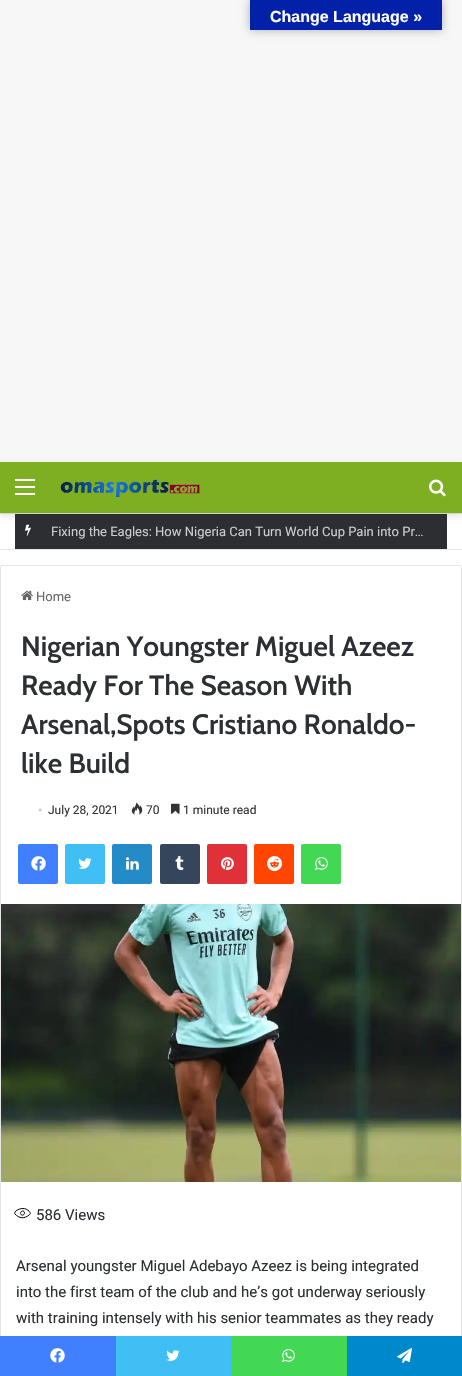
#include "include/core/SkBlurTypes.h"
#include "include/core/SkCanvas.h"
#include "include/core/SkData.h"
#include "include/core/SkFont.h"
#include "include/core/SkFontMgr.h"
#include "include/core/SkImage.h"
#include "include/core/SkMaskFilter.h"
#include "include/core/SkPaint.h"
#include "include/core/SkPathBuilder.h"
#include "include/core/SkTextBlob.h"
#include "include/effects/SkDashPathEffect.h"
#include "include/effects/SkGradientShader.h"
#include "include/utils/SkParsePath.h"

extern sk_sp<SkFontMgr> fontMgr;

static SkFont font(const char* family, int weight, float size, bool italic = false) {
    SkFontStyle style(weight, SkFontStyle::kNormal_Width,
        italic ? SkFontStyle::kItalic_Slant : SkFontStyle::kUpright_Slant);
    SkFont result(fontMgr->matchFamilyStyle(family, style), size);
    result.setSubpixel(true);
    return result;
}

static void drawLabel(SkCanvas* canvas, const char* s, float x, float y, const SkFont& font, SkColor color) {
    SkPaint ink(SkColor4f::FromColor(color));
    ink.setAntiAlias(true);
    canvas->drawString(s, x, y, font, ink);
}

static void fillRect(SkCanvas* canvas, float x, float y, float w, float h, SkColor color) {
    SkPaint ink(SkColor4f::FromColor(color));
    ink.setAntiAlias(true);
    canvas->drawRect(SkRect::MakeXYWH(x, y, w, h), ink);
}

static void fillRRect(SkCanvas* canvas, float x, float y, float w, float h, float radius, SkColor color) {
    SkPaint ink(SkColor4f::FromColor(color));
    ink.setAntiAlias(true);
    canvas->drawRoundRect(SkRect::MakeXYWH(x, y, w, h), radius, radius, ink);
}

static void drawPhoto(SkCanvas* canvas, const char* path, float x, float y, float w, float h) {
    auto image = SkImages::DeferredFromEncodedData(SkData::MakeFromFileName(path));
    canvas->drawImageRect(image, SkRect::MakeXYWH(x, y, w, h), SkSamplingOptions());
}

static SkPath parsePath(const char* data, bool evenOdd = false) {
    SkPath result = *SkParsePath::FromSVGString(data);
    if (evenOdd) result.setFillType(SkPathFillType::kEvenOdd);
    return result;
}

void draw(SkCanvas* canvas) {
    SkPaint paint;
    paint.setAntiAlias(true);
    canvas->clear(0xFFF7F7F7);
    paint.setColor(0x4D000000);
    paint.setMaskFilter(SkMaskFilter::MakeBlur(kNormal_SkBlurStyle, 4.5f));
    canvas->drawRect(SkRect::MakeXYWH(250, 0, 192, 30), paint);
    paint.setMaskFilter(nullptr);
    fillRect(canvas, 250, 0, 192, 30, 0xFF0321A8);
    SkFont font1 = font("Liberation Sans", 700, 16);
    drawLabel(canvas, "Change Language »", 270, 22, font1, 0xFFFFFFFF);
    fillRect(canvas, 0, 513, 462, 823, 0xFFFFFFFF);
    paint.setColor(0x1A000000);
    paint.setMaskFilter(SkMaskFilter::MakeBlur(kNormal_SkBlurStyle, 3.5f));
    canvas->drawRect(SkRect::MakeXYWH(0, 465, 462, 51), paint);
    paint.setMaskFilter(nullptr);
    fillRect(canvas, 0, 462, 462, 51, 0xFF7EAE22);
    fillRect(canvas, 15, 486, 20, 2, 0xFFFFFFFF);
    fillRect(canvas, 15, 479, 20, 2, 0xFFFFFFFF);
    fillRect(canvas, 15, 493, 20, 2, 0xFFFFFFFF);
    drawPhoto(canvas, "assets/img1.png", 60, 479, 140, 19);
    drawPhoto(canvas, "assets/img2.png", 429, 479, 17, 18);
    fillRect(canvas, 0, 513, 462, 1, 0x1A000000);
    fillRect(canvas, 0, 549, 462, 1, 0xFFE6E6E6);
    fillRect(canvas, 15, 514, 432, 35, 0xFF2C2E32);
    drawPhoto(canvas, "assets/img3.png", 25, 524, 6, 12);
    SkFont font2 = font("Roboto", 400, 13);
    drawLabel(canvas, "Fixing the Eagles: How Nigeria Can Turn World Cup Pain into Pr…", 51, 536, font2, 0xFFCCCCCC);
    paint.setStroke(true);
    paint.setStrokeWidth(1);
    paint.setColor(0xFFE6E6E6);
    canvas->drawRoundRect(SkRect::MakeXYWH(0.5f, 565.5f, 461, 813), 1.5f, 1.5f, paint);
    drawPhoto(canvas, "assets/img4.png", 21, 590, 12, 11);
    drawLabel(canvas, "Home", 36, 601, font2, 0xFF666666);
    SkFont font3 = font("Cabin", 600, 28);
    drawLabel(canvas, "Nigerian Youngster Miguel Azeez", 21, 656, font3, 0xFF2C2F34);
    drawLabel(canvas, "Ready For The Season With", 21, 695, font3, 0xFF2C2F34);
    drawLabel(canvas, "Arsenal,Spots Cristiano Ronaldo-", 21, 734, font3, 0xFF2C2F34);
    drawLabel(canvas, "like Build", 21, 773, font3, 0xFF2C2F34);
    SkFont font4 = font("Liberation Serif", 400, 12);
    drawLabel(canvas, "•", 38, 814, font4, 0xFFCCCCCC);
    SkFont font5 = font("Roboto", 400, 12);
    drawLabel(canvas, "July 28, 2021", 48, 814, font5, 0xFF333333);
    drawPhoto(canvas, "assets/img5.png", 131, 802, 12, 13);
    drawLabel(canvas, "70", 146, 814, font5, 0xFF333333);
    drawPhoto(canvas, "assets/img6.png", 171, 803, 9, 11);
    drawLabel(canvas, "1 minute read", 183, 814, font5, 0xFF333333);
    fillRRect(canvas, 18, 844, 40, 40, 2, 0xFF4080FF);
    drawPhoto(canvas, "assets/img7.png", 31, 856, 15, 15);
    fillRRect(canvas, 65, 844, 40, 40, 2, 0xFF40BFF5);
    drawPhoto(canvas, "assets/img8.png", 78, 858, 14, 11);
    fillRRect(canvas, 112, 844, 40, 40, 2, 0xFF238CC8);
    drawPhoto(canvas, "assets/img9.png", 126, 857, 13, 13);
    fillRRect(canvas, 160, 844, 40, 40, 2, 0xFF35465C);
    drawPhoto(canvas, "assets/img10.png", 175, 856, 9, 14);
    fillRRect(canvas, 207, 844, 40, 40, 2, 0xFFE13138);
    drawPhoto(canvas, "assets/img11.png", 221, 857, 13, 13);
    fillRRect(canvas, 254, 844, 40, 40, 2, 0xFFFF4500);
    drawPhoto(canvas, "assets/img12.png", 267, 856, 15, 16);
    fillRRect(canvas, 301, 844, 40, 40, 2, 0xFF43D854);
    drawPhoto(canvas, "assets/img13.png", 315, 857, 13, 13);
    drawPhoto(canvas, "assets/img14.png", 1, 904, 460, 278);
    paint.setColor(0xFF000000);
    canvas->drawPath(parsePath("M29 1211C30.5 1213 31 1213.5 29 1215C24.5 1219 19 1218.5 15 1214C12.5 1211.5 23 1205 29 1211ZM24 1211.5C25.5 1213.5 23 1216.5 21 1214.5C19.5 1212.5 22 1210 24 1211.5Z"), paint);
    SkFont font6 = font("Roboto", 400, 15);
    drawLabel(canvas, "586 Views", 36, 1220, font6, 0xFF2C2F34);
    drawLabel(canvas, "Arsenal youngster Miguel Adebayo Azeez is being integrated", 16, 1271, font6, 0xFF2C2F34);
    drawLabel(canvas, "into the first team of the club and he’s got underway seriously", 16, 1297, font6, 0xFF2C2F34);
    drawLabel(canvas, "with training intensely with his senior teammates as they ready", 16, 1323, font6, 0xFF2C2F34);
    fillRect(canvas, 0, 1336, 116, 40, 0xFF4080FF);
    drawPhoto(canvas, "assets/img7.png", 50, 1348, 15, 15);
    fillRect(canvas, 116, 1336, 115, 40, 0xFF40BFF5);
    drawPhoto(canvas, "assets/img8.png", 166, 1350, 14, 11);
    fillRect(canvas, 231, 1336, 116, 40, 0xFF43D854);
    drawPhoto(canvas, "assets/img13.png", 282, 1349, 13, 13);
    fillRect(canvas, 347, 1336, 115, 40, 0xFF0088CC);
    drawPhoto(canvas, "assets/img15.png", 397, 1348, 15, 15);
}
